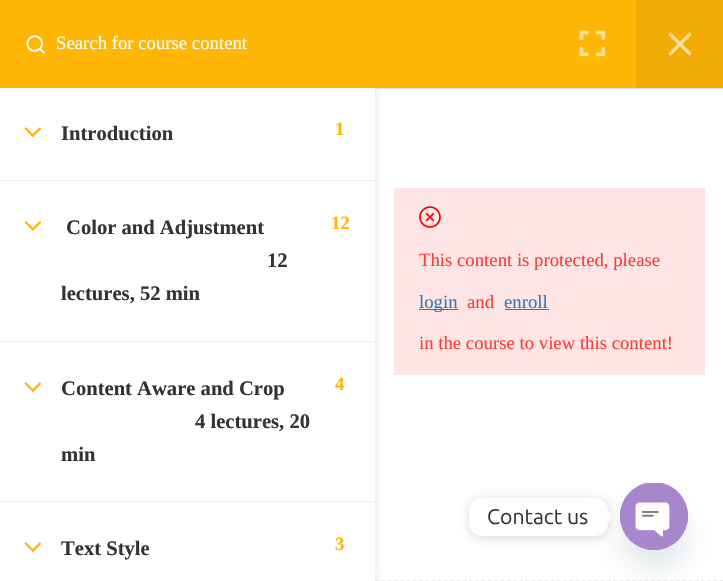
#include "include/core/SkBlurTypes.h"
#include "include/core/SkCanvas.h"
#include "include/core/SkData.h"
#include "include/core/SkFont.h"
#include "include/core/SkFontMgr.h"
#include "include/core/SkImage.h"
#include "include/core/SkMaskFilter.h"
#include "include/core/SkPaint.h"
#include "include/core/SkPathBuilder.h"
#include "include/core/SkTextBlob.h"
#include "include/effects/SkDashPathEffect.h"
#include "include/effects/SkGradientShader.h"
#include "include/utils/SkParsePath.h"

extern sk_sp<SkFontMgr> fontMgr;

static SkFont font(const char* family, int weight, float size, bool italic = false) {
    SkFontStyle style(weight, SkFontStyle::kNormal_Width,
        italic ? SkFontStyle::kItalic_Slant : SkFontStyle::kUpright_Slant);
    SkFont result(fontMgr->matchFamilyStyle(family, style), size);
    result.setSubpixel(true);
    return result;
}

static void drawLabel(SkCanvas* canvas, const char* s, float x, float y, const SkFont& font, SkColor color) {
    SkPaint ink(SkColor4f::FromColor(color));
    ink.setAntiAlias(true);
    canvas->drawString(s, x, y, font, ink);
}

static void fillRect(SkCanvas* canvas, float x, float y, float w, float h, SkColor color) {
    SkPaint ink(SkColor4f::FromColor(color));
    ink.setAntiAlias(true);
    canvas->drawRect(SkRect::MakeXYWH(x, y, w, h), ink);
}

static void fillRRect(SkCanvas* canvas, float x, float y, float w, float h, float radius, SkColor color) {
    SkPaint ink(SkColor4f::FromColor(color));
    ink.setAntiAlias(true);
    canvas->drawRoundRect(SkRect::MakeXYWH(x, y, w, h), radius, radius, ink);
}

static void drawPhoto(SkCanvas* canvas, const char* path, float x, float y, float w, float h) {
    auto image = SkImages::DeferredFromEncodedData(SkData::MakeFromFileName(path));
    canvas->drawImageRect(image, SkRect::MakeXYWH(x, y, w, h), SkSamplingOptions());
}

static SkPath parsePath(const char* data, bool evenOdd = false) {
    SkPath result = *SkParsePath::FromSVGString(data);
    if (evenOdd) result.setFillType(SkPathFillType::kEvenOdd);
    return result;
}

void draw(SkCanvas* canvas) {
    SkPaint paint;
    paint.setAntiAlias(true);
    canvas->clear(0xFFFFFFFF);
    canvas->save();
    canvas->clipRect(SkRect::MakeXYWH(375, 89, 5, 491));
    paint.setColor(0x1A000000);
    paint.setMaskFilter(SkMaskFilter::MakeBlur(kNormal_SkBlurStyle, 6));
    canvas->drawRect(SkRect::MakeXYWH(0, 3, 375, 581), paint);
    paint.setMaskFilter(nullptr);
    canvas->restore();
    fillRect(canvas, 0, 0, 636, 88, 0xFFFFB606);
    drawPhoto(canvas, "assets/img1.png", 26, 35, 19, 19);
    SkFont font1 = font("Liberation Serif", 400, 18.75f);
    drawLabel(canvas, "Search for course content", 56, 49, font1, 0xFFFFFFFF);
    fillRect(canvas, 0, 180, 375, 1, 0xFFEEEEEE);
    drawPhoto(canvas, "assets/img2.png", 24, 127, 18, 10);
    SkFont font2 = font("Liberation Serif", 700, 20.6f);
    drawLabel(canvas, "Introduction", 61, 140, font2, 0xFF333333);
    SkFont font3 = font("Liberation Serif", 700, 18.75f);
    drawLabel(canvas, "1", 335, 135, font3, 0xFFFFB606);
    fillRect(canvas, 0, 341, 375, 1, 0xFFEEEEEE);
    drawPhoto(canvas, "assets/img3.png", 24, 221, 18, 10);
    drawLabel(canvas, "Color and Adjustment", 66, 234, font2, 0xFF333333);
    drawLabel(canvas, "12", 267, 267, font2, 0xFF333333);
    drawLabel(canvas, "lectures, 52 min", 61, 300, font2, 0xFF333333);
    drawLabel(canvas, "12", 331, 229, font3, 0xFFFFB606);
    fillRect(canvas, 0, 501, 375, 1, 0xFFEEEEEE);
    drawPhoto(canvas, "assets/img2.png", 24, 382, 18, 10);
    drawLabel(canvas, "Content Aware and Crop", 61, 395, font2, 0xFF333333);
    drawLabel(canvas, "4 lectures, 20", 195, 428, font2, 0xFF333333);
    drawLabel(canvas, "min", 61, 461, font2, 0xFF333333);
    drawLabel(canvas, "4", 335, 390, font3, 0xFFFFB606);
    drawPhoto(canvas, "assets/img2.png", 24, 542, 18, 10);
    drawLabel(canvas, "Text Style", 61, 555, font2, 0xFF333333);
    drawLabel(canvas, "3", 335, 550, font3, 0xFFFFB606);
    fillRect(canvas, 375, 88, 348, 1, 0xFFD9E0F1);
    drawPhoto(canvas, "assets/img4.png", 579, 30, 27, 27);
    fillRect(canvas, 636, 0, 87, 88, 0xFFF0AB04);
    drawPhoto(canvas, "assets/img5.png", 668, 32, 24, 24);
    fillRect(canvas, 394, 188, 311, 187, 0xFFFEE5E5);
    drawPhoto(canvas, "assets/img6.png", 419, 206, 22, 22);
    drawLabel(canvas, "This content is protected, please", 419, 266, font1, 0xFFFF3B30);
    fillRect(canvas, 419, 309, 39, 1, 0xFF337AB7);
    drawLabel(canvas, "login", 419, 308, font1, 0xFF337AB7);
    drawLabel(canvas, "and", 467, 308, font1, 0xFFFF3B30);
    drawLabel(canvas, "enroll", 504, 308, font1, 0xFF337AB7);
    fillRect(canvas, 505, 309, 44, 1, 0xFF337AB7);
    drawLabel(canvas, "in the course to view this content!", 419, 349, font1, 0xFFFF3B30);
    fillRect(canvas, 375, 580, 6, 1, 0xFFFFFFFF);
    paint.setStroke(true);
    paint.setStrokeWidth(1.2f);
    paint.setColor(0xFFEBEBEB);
    paint.setPathEffect(SkDashPathEffect::Make({{3.75f, 2.52f}}, 0));
    canvas->drawPath(parsePath("M375 580.5H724"), paint);
    paint.setPathEffect(nullptr);
    paint.setStroke(false);
    paint.setColor(0x26000000);
    paint.setMaskFilter(SkMaskFilter::MakeBlur(kNormal_SkBlurStyle, 5));
    canvas->drawRoundRect(SkRect::MakeXYWH(469, 499, 139, 39), 13, 13, paint);
    paint.setMaskFilter(nullptr);
    fillRRect(canvas, 469, 498, 139, 38, 13, 0xFFFFFFFF);
    SkFont font4 = font("Ubuntu", 400, 21.25f);
    drawLabel(canvas, "Contact us", 487, 524, font4, 0xFF333333);
    paint.setColor(0xFFFFFFFF);
    canvas->drawPath(parsePath("M607.5 523V510.5L614 517Z"), paint);
    paint.setColor(0x2949687E);
    paint.setMaskFilter(SkMaskFilter::MakeBlur(kNormal_SkBlurStyle, 15));
    canvas->drawRoundRect(SkRect::MakeXYWH(620, 503, 68, 67), 33.5f, 33.5f, paint);
    paint.setMaskFilter(nullptr);
    fillRRect(canvas, 620, 483, 68, 67, 33.5f, 0xFFA886CD);
    drawPhoto(canvas, "assets/img7.png", 620, 483, 68, 67);
}
